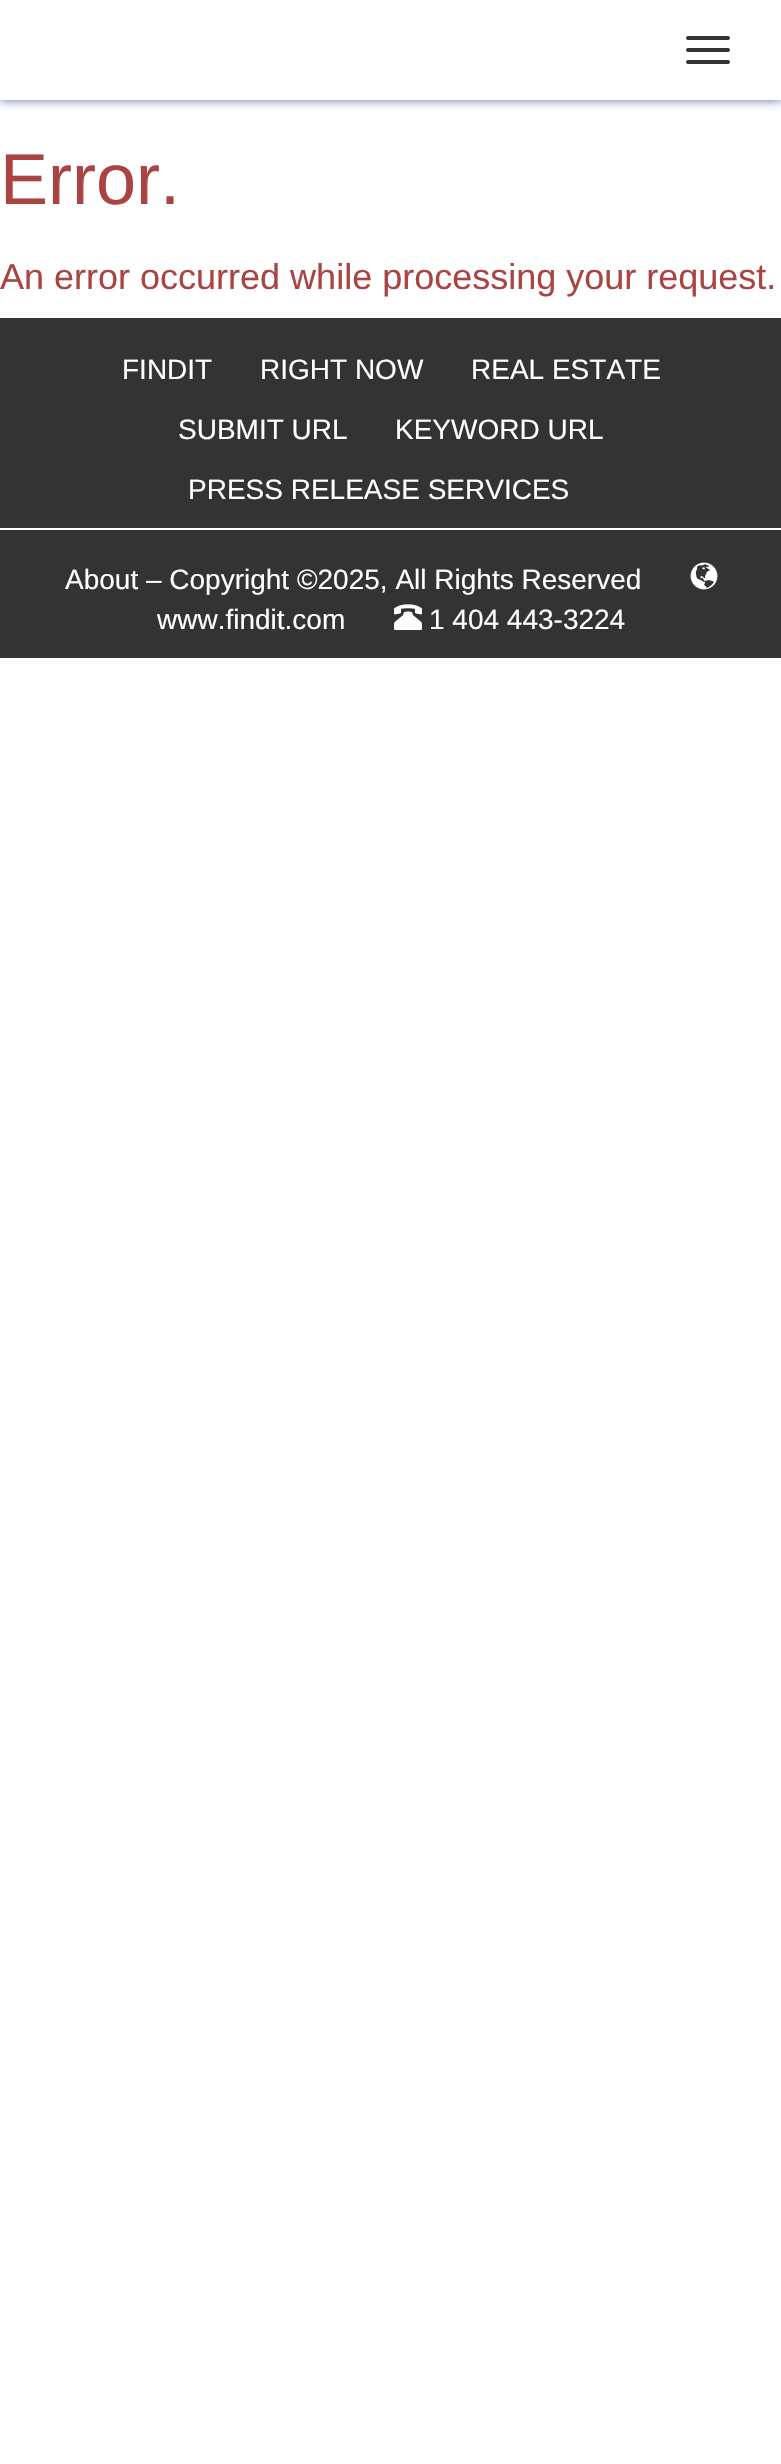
#include "include/core/SkBlurTypes.h"
#include "include/core/SkCanvas.h"
#include "include/core/SkData.h"
#include "include/core/SkFont.h"
#include "include/core/SkFontMgr.h"
#include "include/core/SkImage.h"
#include "include/core/SkMaskFilter.h"
#include "include/core/SkPaint.h"
#include "include/core/SkPathBuilder.h"
#include "include/core/SkTextBlob.h"
#include "include/effects/SkDashPathEffect.h"
#include "include/effects/SkGradientShader.h"
#include "include/utils/SkParsePath.h"

extern sk_sp<SkFontMgr> fontMgr;

static SkFont font(const char* family, int weight, float size, bool italic = false) {
    SkFontStyle style(weight, SkFontStyle::kNormal_Width,
        italic ? SkFontStyle::kItalic_Slant : SkFontStyle::kUpright_Slant);
    SkFont result(fontMgr->matchFamilyStyle(family, style), size);
    result.setSubpixel(true);
    return result;
}

static void drawLabel(SkCanvas* canvas, const char* s, float x, float y, const SkFont& font, SkColor color) {
    SkPaint ink(SkColor4f::FromColor(color));
    ink.setAntiAlias(true);
    canvas->drawString(s, x, y, font, ink);
}

static void fillRect(SkCanvas* canvas, float x, float y, float w, float h, SkColor color) {
    SkPaint ink(SkColor4f::FromColor(color));
    ink.setAntiAlias(true);
    canvas->drawRect(SkRect::MakeXYWH(x, y, w, h), ink);
}

static void fillRRect(SkCanvas* canvas, float x, float y, float w, float h, float radius, SkColor color) {
    SkPaint ink(SkColor4f::FromColor(color));
    ink.setAntiAlias(true);
    canvas->drawRoundRect(SkRect::MakeXYWH(x, y, w, h), radius, radius, ink);
}

static void drawPhoto(SkCanvas* canvas, const char* path, float x, float y, float w, float h) {
    auto image = SkImages::DeferredFromEncodedData(SkData::MakeFromFileName(path));
    canvas->drawImageRect(image, SkRect::MakeXYWH(x, y, w, h), SkSamplingOptions());
}

void draw(SkCanvas* canvas) {
    SkPaint paint;
    paint.setAntiAlias(true);
    canvas->clear(0xFFFFFFFF);
    canvas->save();
    canvas->clipRect(SkRect::MakeXYWH(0, 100, 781, 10));
    paint.setColor(0xBF2B388F);
    paint.setMaskFilter(SkMaskFilter::MakeBlur(kNormal_SkBlurStyle, 5));
    canvas->drawRect(SkRect::MakeXYWH(0, 0, 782, 100), paint);
    paint.setMaskFilter(nullptr);
    canvas->restore();
    fillRRect(canvas, 686, 36, 44, 4, 2, 0xFF333333);
    fillRRect(canvas, 686, 48, 44, 4, 2, 0xFF333333);
    fillRRect(canvas, 686, 60, 44, 4, 2, 0xFF333333);
    SkFont font1 = font("Liberation Sans", 400, 72);
    drawLabel(canvas, "Error.", 0, 204, font1, 0xFFA94442);
    SkFont font2 = font("Liberation Sans", 400, 36);
    drawLabel(canvas, "An error occurred while processing your request.", 0, 289, font2, 0xFFA94442);
    fillRect(canvas, 0, 318, 781, 210, 0xFF333333);
    SkFont font3 = font("Liberation Sans", 400, 28);
    drawLabel(canvas, "FINDIT", 122, 379, font3, 0xFFFFFFFF);
    drawLabel(canvas, "RIGHT NOW", 260, 379, font3, 0xFFFFFFFF);
    drawLabel(canvas, "REAL ESTATE", 471, 379, font3, 0xFFFFFFFF);
    drawLabel(canvas, "SUBMIT URL", 178, 439, font3, 0xFFFFFFFF);
    drawLabel(canvas, "KEYWORD URL", 395, 439, font3, 0xFFFFFFFF);
    drawLabel(canvas, "PRESS RELEASE SERVICES", 188, 499, font3, 0xFFFFFFFF);
    fillRect(canvas, 0, 530, 781, 128, 0xFF333333);
    drawLabel(canvas, "About – Copyright ©2025, All Rights Reserved", 65, 589, font3, 0xFFFFFFFF);
    drawPhoto(canvas, "assets/img1.png", 690, 562, 28, 28);
    drawLabel(canvas, "www.findit.com", 157, 629, font3, 0xFFFFFFFF);
    drawPhoto(canvas, "assets/img2.png", 394, 604, 28, 26);
    drawLabel(canvas, "1 404 443-3224", 429, 629, font3, 0xFFFFFFFF);
}
